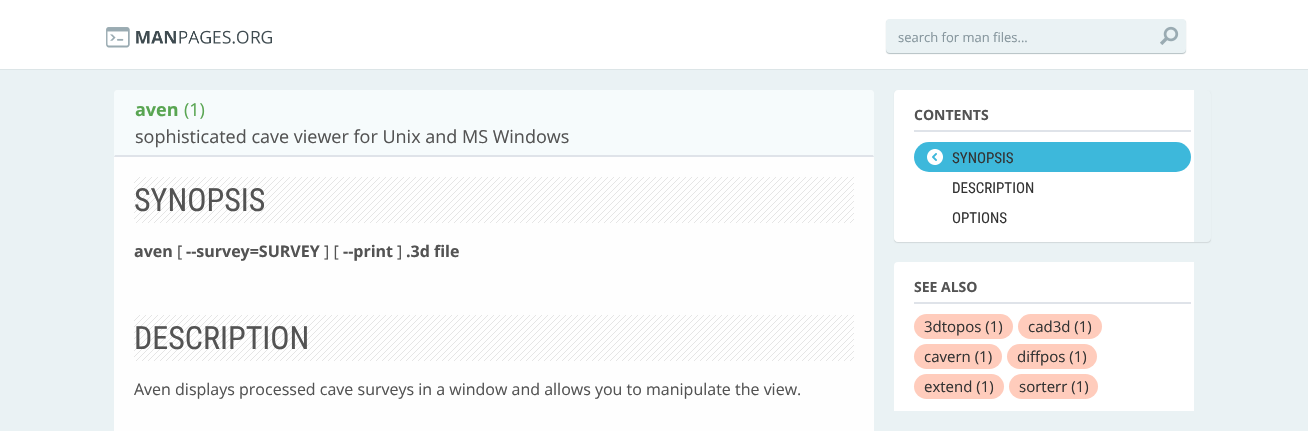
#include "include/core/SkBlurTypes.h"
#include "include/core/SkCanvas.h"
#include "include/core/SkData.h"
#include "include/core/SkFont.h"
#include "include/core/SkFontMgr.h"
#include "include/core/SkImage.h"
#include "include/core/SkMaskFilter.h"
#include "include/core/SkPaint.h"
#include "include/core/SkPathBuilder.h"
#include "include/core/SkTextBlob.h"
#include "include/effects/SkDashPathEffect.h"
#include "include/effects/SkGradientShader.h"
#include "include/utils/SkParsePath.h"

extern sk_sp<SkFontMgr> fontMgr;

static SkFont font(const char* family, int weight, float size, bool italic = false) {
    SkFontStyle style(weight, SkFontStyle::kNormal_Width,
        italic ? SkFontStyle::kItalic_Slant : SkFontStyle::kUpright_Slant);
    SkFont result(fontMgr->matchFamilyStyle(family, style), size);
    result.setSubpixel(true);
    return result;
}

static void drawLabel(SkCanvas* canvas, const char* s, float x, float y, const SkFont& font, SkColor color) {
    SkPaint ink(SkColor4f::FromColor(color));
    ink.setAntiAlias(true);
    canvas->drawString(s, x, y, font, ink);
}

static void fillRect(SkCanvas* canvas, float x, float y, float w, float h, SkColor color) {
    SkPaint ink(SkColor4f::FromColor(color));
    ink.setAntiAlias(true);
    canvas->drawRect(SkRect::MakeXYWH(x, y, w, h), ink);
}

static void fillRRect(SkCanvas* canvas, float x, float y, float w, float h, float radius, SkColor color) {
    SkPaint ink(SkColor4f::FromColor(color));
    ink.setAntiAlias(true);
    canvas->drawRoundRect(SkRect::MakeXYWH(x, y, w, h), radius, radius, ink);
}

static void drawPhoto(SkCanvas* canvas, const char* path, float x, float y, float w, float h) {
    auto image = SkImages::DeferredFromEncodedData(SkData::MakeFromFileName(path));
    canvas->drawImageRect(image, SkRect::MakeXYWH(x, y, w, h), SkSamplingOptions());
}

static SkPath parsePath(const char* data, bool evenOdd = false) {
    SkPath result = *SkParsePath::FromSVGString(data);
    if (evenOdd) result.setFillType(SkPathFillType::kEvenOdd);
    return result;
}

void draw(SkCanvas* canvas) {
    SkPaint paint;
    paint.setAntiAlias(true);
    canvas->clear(0xFFEAF2F4);
    fillRect(canvas, 0, 0, 1308, 69, 0xFFFFFFFF);
    fillRect(canvas, 0, 69, 1308, 1, 0xFFDCE5E7);
    drawPhoto(canvas, "assets/img1.png", 106, 27, 166, 21);
    paint.setColor(0x4D062F37);
    paint.setMaskFilter(SkMaskFilter::MakeBlur(kNormal_SkBlurStyle, 0.5f));
    canvas->drawRoundRect(SkRect::MakeXYWH(886, 20, 300, 34), 4, 4, paint);
    paint.setMaskFilter(nullptr);
    fillRRect(canvas, 886, 19, 300, 34, 4, 0xFFEAF2F4);
    SkFont font1 = font("Open Sans", 400, 13);
    drawLabel(canvas, "search for man files...", 898, 42, font1, 0xFF86969D);
    drawPhoto(canvas, "assets/img2.png", 1160, 26, 19, 19);
    paint.setColor(0xFFFEFEFE);
    canvas->drawPath(parsePath("M118 90H870C872 90 874 92 874 94V431H114V94C114 92 116 90 118 90Z"), paint);
    paint.setColor(0xFFF6FBFC);
    canvas->drawPath(parsePath("M117 90H871C872.5 90 874 91.5 874 93V157H114V93C114 91.5 115.5 90 117 90Z"), paint);
    paint.setColor(0xFFDFE3E9);
    canvas->drawPath(parsePath("M874 157L873 155H115L114 157Z"), paint);
    SkFont font2 = font("Open Sans", 700, 18);
    drawLabel(canvas, "aven", 135, 116, font2, 0xFF59A552);
    SkFont font3 = font("Open Sans", 400, 18);
    drawLabel(canvas, "(1)", 184, 116, font3, 0xFF59A552);
    drawLabel(canvas, "sophisticated cave viewer for Unix and MS Windows", 135, 143, font3, 0xFF535353);
    drawPhoto(canvas, "assets/img3.png", 134, 177, 720, 46);
    SkFont font4 = font("Roboto Condensed", 400, 32);
    drawLabel(canvas, "SYNOPSIS", 134, 211, font4, 0xFF535353);
    SkFont font5 = font("Open Sans", 700, 16);
    drawLabel(canvas, "aven", 134, 257, font5, 0xFF535353);
    SkFont font6 = font("Open Sans", 400, 16);
    drawLabel(canvas, "[", 177, 257, font6, 0xFF535353);
    drawLabel(canvas, "--survey=SURVEY", 186, 257, font5, 0xFF535353);
    drawLabel(canvas, "] [", 324, 257, font6, 0xFF535353);
    drawLabel(canvas, "--print", 343, 257, font5, 0xFF535353);
    drawLabel(canvas, "]", 397, 257, font6, 0xFF535353);
    drawLabel(canvas, ".3d file", 406, 257, font5, 0xFF535353);
    drawPhoto(canvas, "assets/img3.png", 134, 315, 720, 46);
    drawLabel(canvas, "DESCRIPTION", 134, 349, font4, 0xFF535353);
    drawLabel(canvas, "Aven displays processed cave surveys in a window and allows you to manipulate the view.", 134, 395, font6, 0xFF535353);
    canvas->save();
    canvas->clipPath(parsePath("M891 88H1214V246H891ZM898 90H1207C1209 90 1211 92 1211 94V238C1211 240 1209 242 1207 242H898C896 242 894 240 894 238V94C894 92 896 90 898 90Z", true), true);
    paint.setColor(0x1A000000);
    paint.setMaskFilter(SkMaskFilter::MakeBlur(kNormal_SkBlurStyle, 0.5f));
    canvas->drawRoundRect(SkRect::MakeXYWH(894, 91, 317, 152), 4, 4, paint);
    paint.setMaskFilter(nullptr);
    canvas->restore();
    paint.setColor(0xFFFFFFFF);
    canvas->drawPath(parsePath("M898 90H1194V242H898C896 242 894 240 894 238V94C894 92 896 90 898 90Z"), paint);
    fillRect(canvas, 914, 130, 277, 2, 0xFFDFE3E9);
    SkFont font7 = font("Open Sans", 700, 14);
    drawLabel(canvas, "CONTENTS", 914, 120, font7, 0xFF535353);
    fillRRect(canvas, 914, 142, 277, 30, 15, 0xFF3DB8DB);
    drawPhoto(canvas, "assets/img4.png", 927, 149, 16, 16);
    SkFont font8 = font("Roboto Condensed", 400, 15);
    drawLabel(canvas, "SYNOPSIS", 952, 163, font8, 0xFF333333);
    drawLabel(canvas, "DESCRIPTION", 952, 193, font8, 0xFF333333);
    drawLabel(canvas, "OPTIONS", 952, 223, font8, 0xFF333333);
    canvas->save();
    canvas->clipRect(SkRect::MakeXYWH(894, 90, 300, 321));
    fillRRect(canvas, 894, 262, 317, 152, 4, 0xFFFFFFFF);
    canvas->restore();
    fillRect(canvas, 914, 302, 277, 2, 0xFFDFE3E9);
    drawLabel(canvas, "SEE ALSO", 914, 292, font7, 0xFF535353);
    fillRRect(canvas, 914, 314, 99, 25, 12.5f, 0xFFFFCCBC);
    SkFont font9 = font("Open Sans", 400, 15);
    drawLabel(canvas, "3dtopos (1)", 924, 332, font9, 0xFF333333);
    fillRRect(canvas, 1018, 314, 84, 25, 12.5f, 0xFFFFCCBC);
    drawLabel(canvas, "cad3d (1)", 1028, 332, font9, 0xFF333333);
    fillRRect(canvas, 914, 344, 88, 25, 12.5f, 0xFFFFCCBC);
    drawLabel(canvas, "cavern (1)", 924, 362, font9, 0xFF333333);
    fillRRect(canvas, 1007, 344, 90, 25, 12.5f, 0xFFFFCCBC);
    drawLabel(canvas, "diffpos (1)", 1017, 362, font9, 0xFF333333);
    fillRRect(canvas, 914, 374, 90, 25, 12.5f, 0xFFFFCCBC);
    drawLabel(canvas, "extend (1)", 924, 392, font9, 0xFF333333);
    fillRRect(canvas, 1009, 374, 89, 25, 12.5f, 0xFFFFCCBC);
    drawLabel(canvas, "sorterr (1)", 1019, 392, font9, 0xFF333333);
}
